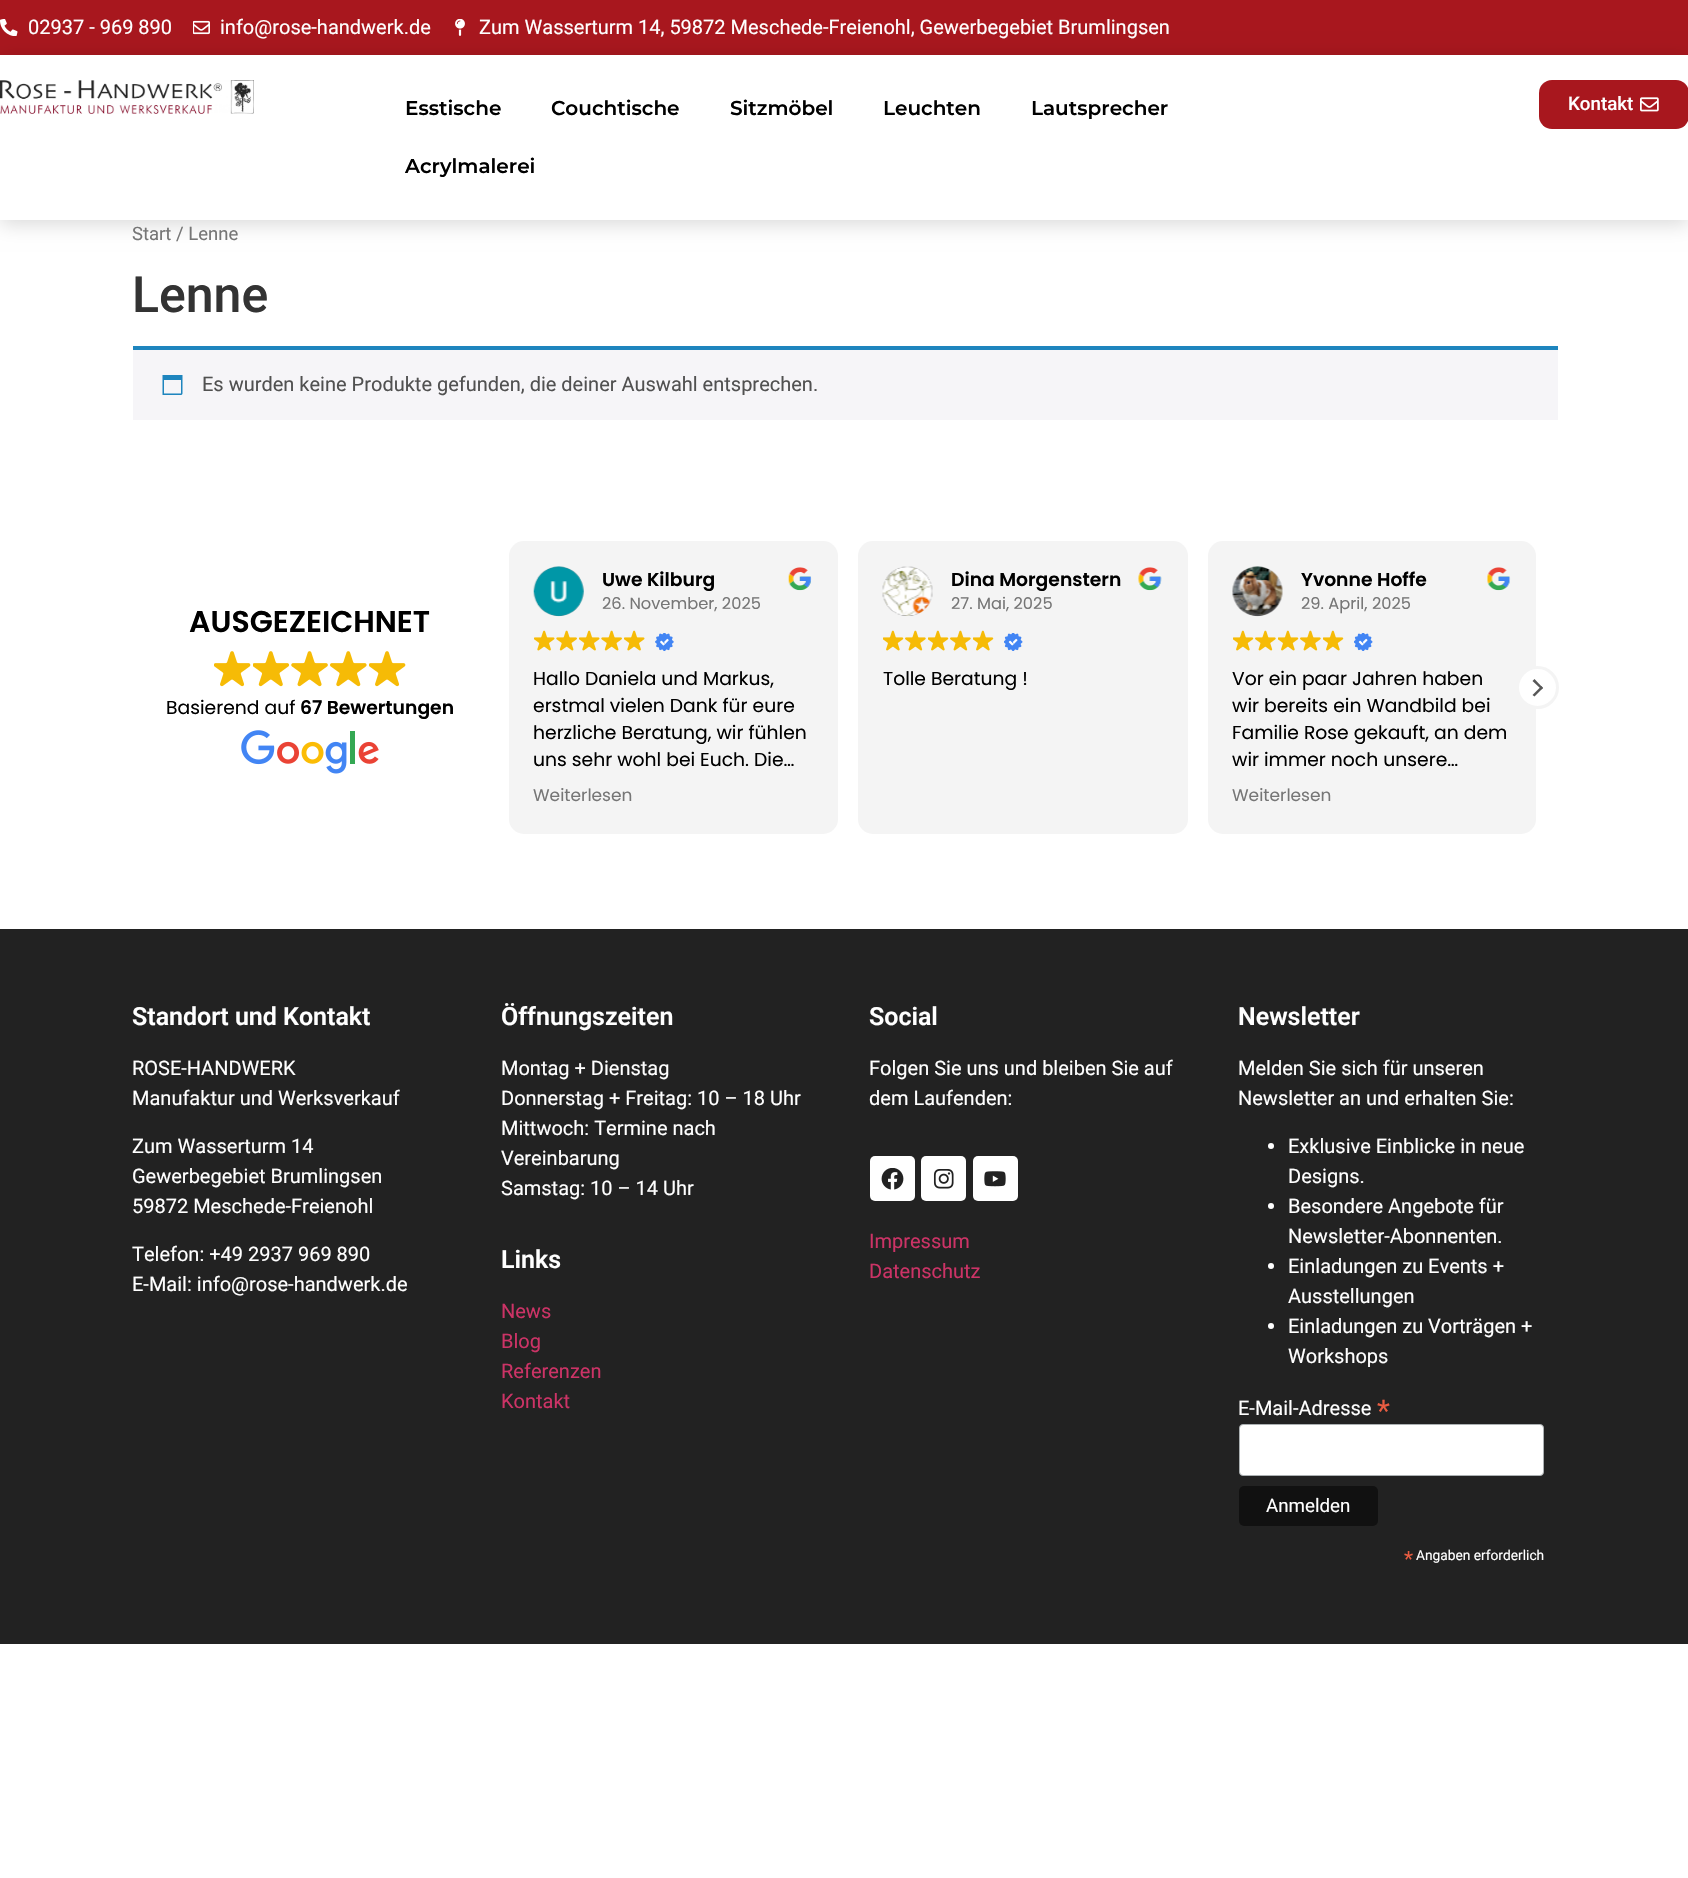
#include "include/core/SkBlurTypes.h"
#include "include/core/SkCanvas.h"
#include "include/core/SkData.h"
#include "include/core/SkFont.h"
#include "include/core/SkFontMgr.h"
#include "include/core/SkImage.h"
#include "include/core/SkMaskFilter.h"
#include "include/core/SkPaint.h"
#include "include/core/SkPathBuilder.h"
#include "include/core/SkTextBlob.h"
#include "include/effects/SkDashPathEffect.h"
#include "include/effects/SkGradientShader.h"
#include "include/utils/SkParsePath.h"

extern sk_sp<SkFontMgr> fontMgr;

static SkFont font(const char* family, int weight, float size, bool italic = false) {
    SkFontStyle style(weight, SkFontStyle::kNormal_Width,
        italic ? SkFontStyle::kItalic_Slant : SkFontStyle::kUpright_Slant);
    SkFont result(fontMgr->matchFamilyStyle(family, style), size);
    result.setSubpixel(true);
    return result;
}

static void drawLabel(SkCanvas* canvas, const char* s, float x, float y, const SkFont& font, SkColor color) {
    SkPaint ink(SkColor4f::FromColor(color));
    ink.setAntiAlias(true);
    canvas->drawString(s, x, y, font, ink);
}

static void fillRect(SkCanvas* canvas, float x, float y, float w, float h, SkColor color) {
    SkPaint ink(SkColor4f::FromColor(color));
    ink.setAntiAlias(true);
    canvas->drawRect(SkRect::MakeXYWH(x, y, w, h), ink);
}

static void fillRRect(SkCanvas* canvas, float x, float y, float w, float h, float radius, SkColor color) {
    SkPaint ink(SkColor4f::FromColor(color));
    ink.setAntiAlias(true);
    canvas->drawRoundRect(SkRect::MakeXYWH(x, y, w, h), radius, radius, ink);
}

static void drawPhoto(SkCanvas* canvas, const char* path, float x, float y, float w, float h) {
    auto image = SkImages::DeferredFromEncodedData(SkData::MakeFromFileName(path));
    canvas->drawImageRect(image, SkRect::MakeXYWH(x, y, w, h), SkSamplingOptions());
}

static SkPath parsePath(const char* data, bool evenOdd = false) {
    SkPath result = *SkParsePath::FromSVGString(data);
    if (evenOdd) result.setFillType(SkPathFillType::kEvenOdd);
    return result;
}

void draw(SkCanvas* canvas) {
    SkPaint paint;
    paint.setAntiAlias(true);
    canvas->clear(0xFFFFFFFF);
    fillRect(canvas, 0, 0, 1688, 55, 0xFFA8171E);
    drawPhoto(canvas, "assets/img1.png", 0, 19, 18, 17);
    SkFont font1 = font("Roboto", 400, 20);
    drawLabel(canvas, "02937 - 969 890", 28, 34, font1, 0xFFFFFFFF);
    drawPhoto(canvas, "assets/img2.png", 193, 20, 17, 15);
    drawLabel(canvas, "info@rose-handwerk.de", 220, 34, font1, 0xFFFFFFFF);
    drawPhoto(canvas, "assets/img3.png", 455, 19, 10, 17);
    drawLabel(canvas, "Zum Wasserturm 14, 59872 Meschede-Freienohl, Gewerbegebiet Brumlingsen", 479, 34, font1, 0xFFFFFFFF);
    paint.setColor(0x26000000);
    paint.setMaskFilter(SkMaskFilter::MakeBlur(kNormal_SkBlurStyle, 9.5f));
    canvas->drawRect(SkRect::MakeXYWH(0, 59, 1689, 165), paint);
    paint.setMaskFilter(nullptr);
    fillRect(canvas, 0, 55, 1688, 165, 0xFFFFFFFF);
    drawPhoto(canvas, "assets/img4.png", 0, 80, 254, 34);
    SkFont font2 = font("Montserrat", 600, 20);
    drawLabel(canvas, "Esstische", 405, 115, font2, 0xFF000000);
    drawLabel(canvas, "Couchtische", 551, 115, font2, 0xFF000000);
    drawLabel(canvas, "Sitzmöbel", 730, 115, font2, 0xFF000000);
    drawLabel(canvas, "Leuchten", 883, 115, font2, 0xFF000000);
    drawLabel(canvas, "Lautsprecher", 1031, 115, font2, 0xFF000000);
    drawLabel(canvas, "Acrylmalerei", 405, 173, font2, 0xFF000000);
    fillRRect(canvas, 1539, 80, 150, 49, 13, 0xFFA8171E);
    SkFont font3 = font("Roboto", 500, 18.75f);
    drawLabel(canvas, "Kontakt", 1568, 110, font3, 0xFFFFFFFF);
    drawPhoto(canvas, "assets/img5.png", 1640, 97, 19, 15);
    SkFont font4 = font("Roboto", 400, 18.5f);
    drawLabel(canvas, "Start / Lenne", 132, 240, font4, 0xFF767676);
    SkFont font5 = font("Roboto", 500, 50);
    drawLabel(canvas, "Lenne", 132, 312, font5, 0xFF333333);
    fillRect(canvas, 133, 350, 1425, 70, 0xFFF6F5F8);
    fillRect(canvas, 133, 346, 1425, 4, 0xFF1E85BE);
    drawPhoto(canvas, "assets/img6.png", 162, 375, 21, 20);
    drawLabel(canvas, "Es wurden keine Produkte gefunden, die deiner Auswahl entsprechen.", 202, 391, font1, 0xFF515151);
    SkFont font6 = font("Poppins", 600, 30);
    drawLabel(canvas, "AUSGEZEICHNET", 189, 632, font6, 0xFF000000);
    drawPhoto(canvas, "assets/img7.png", 214, 651, 37, 36);
    drawPhoto(canvas, "assets/img8.png", 253, 651, 37, 36);
    drawPhoto(canvas, "assets/img9.png", 291, 651, 37, 36);
    drawPhoto(canvas, "assets/img10.png", 330, 651, 37, 36);
    drawPhoto(canvas, "assets/img7.png", 369, 651, 37, 36);
    SkFont font7 = font("Poppins", 400, 18.75f);
    drawLabel(canvas, "Basierend auf", 166, 714, font7, 0xFF000000);
    SkFont font8 = font("Poppins", 600, 18.75f);
    drawLabel(canvas, "67 Bewertungen", 300, 714, font8, 0xFF000000);
    drawPhoto(canvas, "assets/img11.png", 241, 730, 138, 44);
    fillRRect(canvas, 509, 541, 329, 293, 15, 0xFFF4F4F4);
    drawPhoto(canvas, "assets/img12.png", 533, 566, 51, 51);
    drawLabel(canvas, "Uwe Kilburg", 602, 586, font8, 0xFF000000);
    SkFont font9 = font("Poppins", 400, 16.25f);
    drawLabel(canvas, "26. November, 2025", 602, 609, font9, 0xFF767676);
    drawPhoto(canvas, "assets/img13.png", 788, 567, 24, 24);
    drawPhoto(canvas, "assets/img14.png", 534, 630, 21, 21);
    drawPhoto(canvas, "assets/img15.png", 556, 630, 21, 21);
    drawPhoto(canvas, "assets/img14.png", 579, 630, 21, 21);
    drawPhoto(canvas, "assets/img15.png", 601, 630, 21, 21);
    drawPhoto(canvas, "assets/img14.png", 624, 630, 21, 21);
    drawPhoto(canvas, "assets/img16.png", 655, 633, 19, 18);
    drawLabel(canvas, "Hallo Daniela und Markus,", 533, 685, font7, 0xFF000000);
    drawLabel(canvas, "erstmal vielen Dank für eure", 533, 712, font7, 0xFF000000);
    drawLabel(canvas, "herzliche Beratung, wir fühlen", 533, 739, font7, 0xFF000000);
    drawLabel(canvas, "uns sehr wohl bei Euch. Die…", 533, 766, font7, 0xFF000000);
    SkFont font10 = font("Poppins", 400, 17);
    drawLabel(canvas, "Weiterlesen", 533, 801, font10, 0xFF767676);
    fillRRect(canvas, 858, 541, 330, 293, 15, 0xFFF4F4F4);
    drawPhoto(canvas, "assets/img17.png", 882, 566, 51, 50);
    drawLabel(canvas, "Dina Morgenstern", 951, 586, font8, 0xFF000000);
    drawLabel(canvas, "27. Mai, 2025", 951, 609, font9, 0xFF767676);
    drawPhoto(canvas, "assets/img18.png", 1138, 567, 24, 24);
    drawPhoto(canvas, "assets/img19.png", 883, 630, 21, 21);
    drawPhoto(canvas, "assets/img20.png", 905, 630, 21, 21);
    drawPhoto(canvas, "assets/img19.png", 928, 630, 21, 21);
    drawPhoto(canvas, "assets/img20.png", 950, 630, 21, 21);
    drawPhoto(canvas, "assets/img19.png", 973, 630, 21, 21);
    drawPhoto(canvas, "assets/img21.png", 1004, 633, 19, 18);
    drawLabel(canvas, "Tolle Beratung !", 883, 685, font7, 0xFF000000);
    fillRRect(canvas, 1208, 541, 328, 293, 15, 0xFFF4F4F4);
    drawPhoto(canvas, "assets/img22.png", 1232, 566, 51, 51);
    drawLabel(canvas, "Yvonne Hoffe", 1301, 586, font8, 0xFF000000);
    drawLabel(canvas, "29. April, 2025", 1301, 609, font9, 0xFF767676);
    drawPhoto(canvas, "assets/img23.png", 1487, 567, 24, 24);
    drawPhoto(canvas, "assets/img19.png", 1233, 630, 21, 21);
    drawPhoto(canvas, "assets/img20.png", 1255, 630, 21, 21);
    drawPhoto(canvas, "assets/img19.png", 1278, 630, 21, 21);
    drawPhoto(canvas, "assets/img20.png", 1300, 630, 21, 21);
    drawPhoto(canvas, "assets/img19.png", 1323, 630, 21, 21);
    drawPhoto(canvas, "assets/img21.png", 1354, 633, 19, 18);
    drawLabel(canvas, "Vor ein paar Jahren haben", 1232, 685, font7, 0xFF000000);
    drawLabel(canvas, "wir bereits ein Wandbild bei", 1232, 712, font7, 0xFF000000);
    drawLabel(canvas, "Familie Rose gekauft, an dem", 1232, 739, font7, 0xFF000000);
    drawLabel(canvas, "wir immer noch unsere…", 1232, 766, font7, 0xFF000000);
    drawLabel(canvas, "Weiterlesen", 1232, 801, font10, 0xFF767676);
    paint.setColor(0xFFFFFFFF);
    canvas->drawCircle(1537.5f, 687.5f, 20, paint);
    paint.setStroke(true);
    paint.setStrokeWidth(3);
    paint.setColor(0xFFF4F4F4);
    canvas->drawCircle(1537.5f, 687.5f, 20, paint);
    paint.setStroke(false);
    paint.setColor(0xFF575757);
    canvas->drawPath(parsePath("M1541.5 689.5L1532.5 681L1534.5 679L1543 688Z"), paint);
    canvas->drawPath(parsePath("M1534.5 696.5L1532.5 695L1541.5 686L1543 688Z"), paint);
    fillRect(canvas, 0, 929, 1688, 715, 0xFF222222);
    SkFont font11 = font("Roboto", 600, 25);
    drawLabel(canvas, "Standort und Kontakt", 132, 1025, font11, 0xFFFFFFFF);
    drawLabel(canvas, "ROSE-HANDWERK", 132, 1075, font1, 0xFFFFFFFF);
    drawLabel(canvas, "Manufaktur und Werksverkauf", 132, 1105, font1, 0xFFFFFFFF);
    drawLabel(canvas, "Zum Wasserturm 14", 132, 1153, font1, 0xFFFFFFFF);
    drawLabel(canvas, "Gewerbegebiet Brumlingsen", 132, 1183, font1, 0xFFFFFFFF);
    drawLabel(canvas, "59872 Meschede-Freienohl", 132, 1213, font1, 0xFFFFFFFF);
    drawLabel(canvas, "Telefon: +49 2937 969 890", 132, 1261, font1, 0xFFFFFFFF);
    drawLabel(canvas, "E-Mail: info@rose-handwerk.de", 132, 1291, font1, 0xFFFFFFFF);
    drawLabel(canvas, "Öffnungszeiten", 501, 1025, font11, 0xFFFFFFFF);
    drawLabel(canvas, "Montag + Dienstag", 501, 1075, font1, 0xFFFFFFFF);
    drawLabel(canvas, "Donnerstag + Freitag: 10 – 18 Uhr", 501, 1105, font1, 0xFFFFFFFF);
    drawLabel(canvas, "Mittwoch: Termine nach", 501, 1135, font1, 0xFFFFFFFF);
    drawLabel(canvas, "Vereinbarung", 501, 1165, font1, 0xFFFFFFFF);
    drawLabel(canvas, "Samstag: 10 – 14 Uhr", 501, 1195, font1, 0xFFFFFFFF);
    drawLabel(canvas, "Links", 501, 1268, font11, 0xFFFFFFFF);
    drawLabel(canvas, "News", 501, 1318, font1, 0xFFCC3366);
    drawLabel(canvas, "Blog", 501, 1348, font1, 0xFFCC3366);
    drawLabel(canvas, "Referenzen", 501, 1378, font1, 0xFFCC3366);
    drawLabel(canvas, "Kontakt", 501, 1408, font1, 0xFFCC3366);
    drawLabel(canvas, "Social", 869, 1025, font11, 0xFFFFFFFF);
    drawLabel(canvas, "Folgen Sie uns und bleiben Sie auf", 869, 1075, font1, 0xFFFFFFFF);
    drawLabel(canvas, "dem Laufenden:", 869, 1105, font1, 0xFFFFFFFF);
    fillRRect(canvas, 870, 1156, 45, 45, 5, 0xFFFFFFFF);
    drawPhoto(canvas, "assets/img24.png", 881, 1168, 23, 22);
    fillRRect(canvas, 921, 1156, 45, 45, 5, 0xFFFFFFFF);
    drawPhoto(canvas, "assets/img25.png", 933, 1169, 21, 20);
    fillRRect(canvas, 973, 1156, 45, 45, 5, 0xFFFFFFFF);
    drawPhoto(canvas, "assets/img26.png", 984, 1171, 22, 16);
    drawLabel(canvas, "Impressum", 869, 1248, font1, 0xFFCC3366);
    drawLabel(canvas, "Datenschutz", 869, 1278, font1, 0xFFCC3366);
    drawLabel(canvas, "Newsletter", 1238, 1025, font11, 0xFFFFFFFF);
    drawLabel(canvas, "Melden Sie sich für unseren", 1238, 1075, font1, 0xFFFFFFFF);
    drawLabel(canvas, "Newsletter an und erhalten Sie:", 1238, 1105, font1, 0xFFFFFFFF);
    paint.setColor(0xFFFFFFFF);
    canvas->drawCircle(1271, 1146, 3, paint);
    drawLabel(canvas, "Exklusive Einblicke in neue", 1288, 1153, font1, 0xFFFFFFFF);
    drawLabel(canvas, "Designs.", 1288, 1183, font1, 0xFFFFFFFF);
    canvas->drawCircle(1271, 1206, 3, paint);
    drawLabel(canvas, "Besondere Angebote für", 1288, 1213, font1, 0xFFFFFFFF);
    drawLabel(canvas, "Newsletter-Abonnenten.", 1288, 1243, font1, 0xFFFFFFFF);
    canvas->drawCircle(1271, 1266, 3, paint);
    drawLabel(canvas, "Einladungen zu Events +", 1288, 1273, font1, 0xFFFFFFFF);
    drawLabel(canvas, "Ausstellungen", 1288, 1303, font1, 0xFFFFFFFF);
    canvas->drawCircle(1271, 1326, 3, paint);
    drawLabel(canvas, "Einladungen zu Vorträgen +", 1288, 1333, font1, 0xFFFFFFFF);
    drawLabel(canvas, "Workshops", 1288, 1363, font1, 0xFFFFFFFF);
    drawLabel(canvas, "E-Mail-Adresse", 1238, 1415, font1, 0xFFFFFFFF);
    SkFont font12 = font("Roboto", 400, 30);
    drawLabel(canvas, "*", 1377, 1421, font12, 0xFFE85C41);
    canvas->drawRoundRect(SkRect::MakeXYWH(1239.5f, 1424.5f, 304, 51), 3.5f, 3.5f, paint);
    paint.setStroke(true);
    paint.setStrokeWidth(1);
    paint.setColor(0xFFABB0B2);
    canvas->drawRoundRect(SkRect::MakeXYWH(1239.5f, 1424.5f, 304, 51), 3.5f, 3.5f, paint);
    fillRRect(canvas, 1239, 1486, 139, 40, 5, 0xFF111111);
    SkFont font13 = font("Roboto", 400, 18.75f);
    drawLabel(canvas, "Anmelden", 1266, 1512, font13, 0xFFFFFFFF);
    SkFont font14 = font("Roboto", 400, 21);
    drawLabel(canvas, "*", 1404, 1566, font14, 0xFFE85C41);
    SkFont font15 = font("Roboto", 400, 13.75f);
    drawLabel(canvas, "Angaben erforderlich", 1416, 1560, font15, 0xFFFFFFFF);
}
